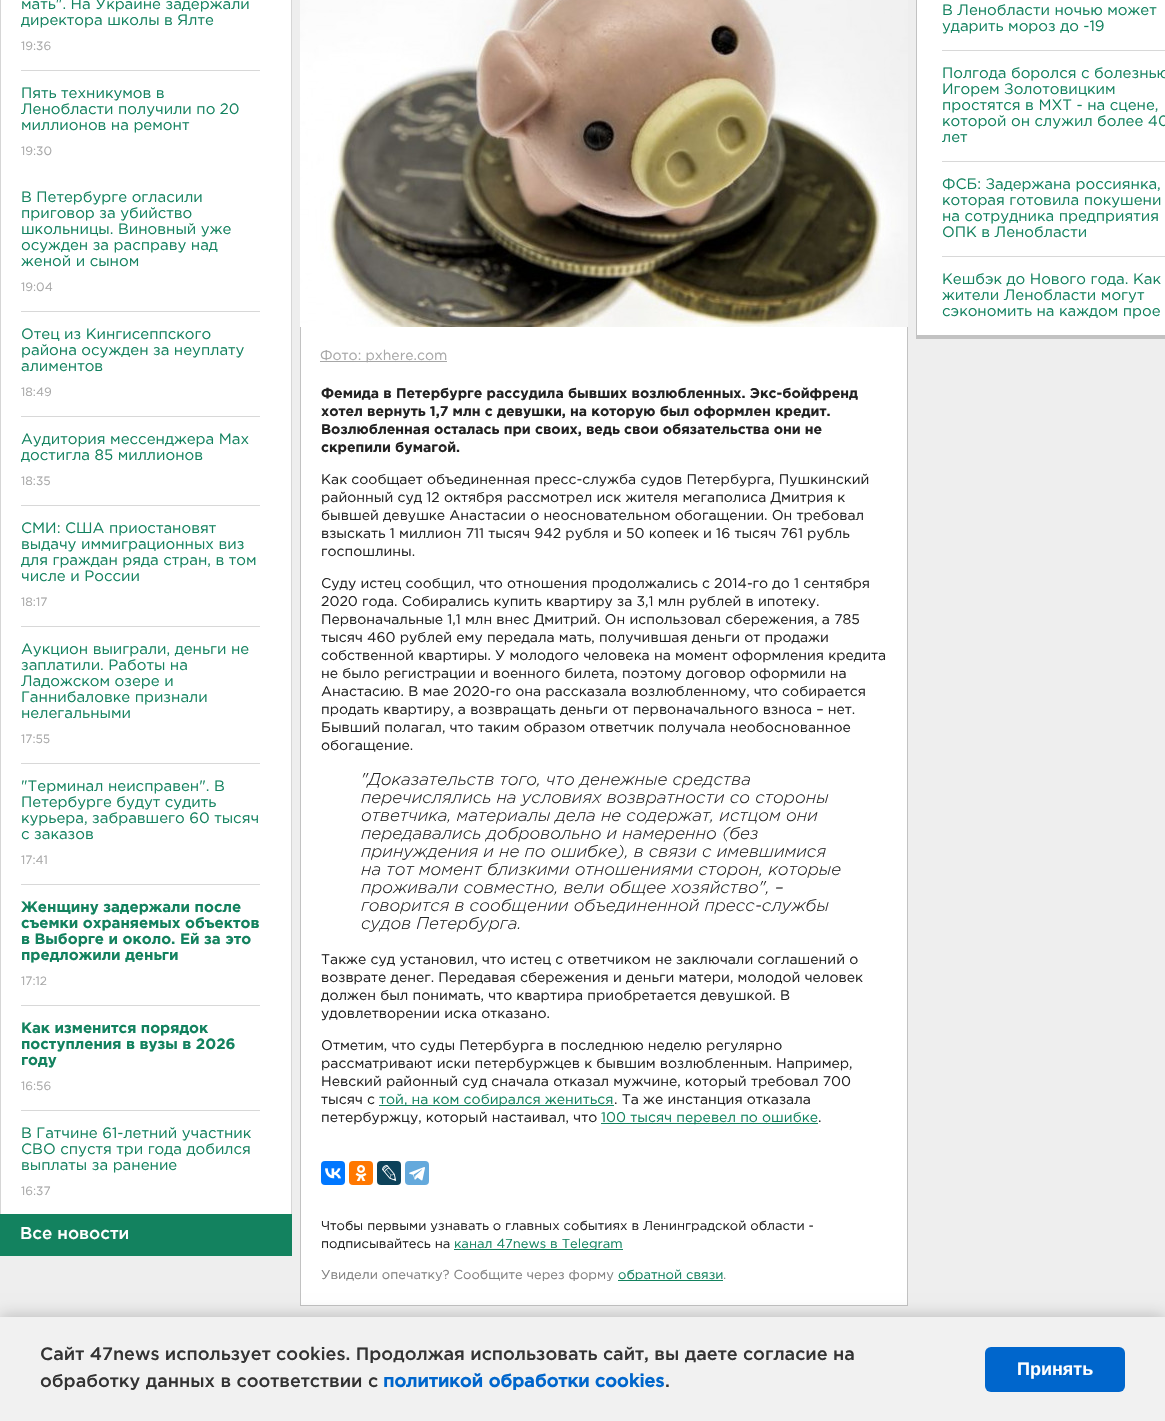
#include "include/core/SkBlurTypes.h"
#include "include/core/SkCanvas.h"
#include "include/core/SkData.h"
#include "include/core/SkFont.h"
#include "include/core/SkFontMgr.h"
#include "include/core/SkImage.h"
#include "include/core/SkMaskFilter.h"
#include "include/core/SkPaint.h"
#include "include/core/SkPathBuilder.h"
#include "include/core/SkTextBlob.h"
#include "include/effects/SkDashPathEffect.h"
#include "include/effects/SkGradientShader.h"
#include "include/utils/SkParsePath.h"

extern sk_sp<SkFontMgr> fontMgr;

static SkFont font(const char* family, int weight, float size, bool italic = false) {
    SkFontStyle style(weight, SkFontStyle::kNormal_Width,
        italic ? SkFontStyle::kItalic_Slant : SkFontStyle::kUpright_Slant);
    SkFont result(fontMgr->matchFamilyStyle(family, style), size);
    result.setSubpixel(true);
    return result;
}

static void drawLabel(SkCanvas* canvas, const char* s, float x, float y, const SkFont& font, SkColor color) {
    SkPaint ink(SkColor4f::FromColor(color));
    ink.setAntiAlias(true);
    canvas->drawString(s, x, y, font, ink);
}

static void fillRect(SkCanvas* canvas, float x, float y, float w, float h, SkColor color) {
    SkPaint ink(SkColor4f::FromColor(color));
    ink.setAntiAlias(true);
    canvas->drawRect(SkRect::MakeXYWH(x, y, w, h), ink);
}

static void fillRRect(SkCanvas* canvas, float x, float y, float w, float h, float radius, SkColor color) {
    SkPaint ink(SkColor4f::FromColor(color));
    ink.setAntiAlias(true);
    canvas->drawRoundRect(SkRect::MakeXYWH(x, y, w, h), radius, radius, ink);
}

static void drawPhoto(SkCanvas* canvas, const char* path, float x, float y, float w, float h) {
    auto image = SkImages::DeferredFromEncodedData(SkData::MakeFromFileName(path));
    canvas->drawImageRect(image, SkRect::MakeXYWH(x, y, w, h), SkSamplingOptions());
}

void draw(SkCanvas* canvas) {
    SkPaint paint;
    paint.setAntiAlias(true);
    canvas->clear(0xFFEEEEEE);
    fillRect(canvas, 1, 0, 290, 1214, 0xFFFFFFFF);
    fillRect(canvas, 291, 0, 1, 1214, 0xFFD6D6D6);
    fillRect(canvas, 0, 0, 1, 1214, 0xFFD6D6D6);
    fillRect(canvas, 21, 70, 239, 1, 0xFFD8D8D8);
    SkFont font1 = font("Gotham", 400, 15);
    drawLabel(canvas, "мать\". На Украине задержали", 21, 9, font1, 0xFF13825F);
    drawLabel(canvas, "директора школы в Ялте", 21, 25, font1, 0xFF13825F);
    SkFont font2 = font("Gotham", 400, 12);
    drawLabel(canvas, "19:36", 21, 50, font2, 0xFFA7A7A7);
    drawLabel(canvas, "Пять техникумов в", 21, 98, font1, 0xFF13825F);
    drawLabel(canvas, "Ленобласти получили по 20", 21, 114, font1, 0xFF13825F);
    drawLabel(canvas, "миллионов на ремонт", 21, 130, font1, 0xFF13825F);
    drawLabel(canvas, "19:30", 21, 155, font2, 0xFFA7A7A7);
    fillRect(canvas, 21, 311, 239, 1, 0xFFD8D8D8);
    drawLabel(canvas, "В Петербурге огласили", 21, 202, font1, 0xFF13825F);
    drawLabel(canvas, "приговор за убийство", 21, 218, font1, 0xFF13825F);
    drawLabel(canvas, "школьницы. Виновный уже", 21, 234, font1, 0xFF13825F);
    drawLabel(canvas, "осужден за расправу над", 21, 250, font1, 0xFF13825F);
    drawLabel(canvas, "женой и сыном", 21, 266, font1, 0xFF13825F);
    drawLabel(canvas, "19:04", 21, 291, font2, 0xFFA7A7A7);
    fillRect(canvas, 21, 416, 239, 1, 0xFFD8D8D8);
    drawLabel(canvas, "Отец из Кингисеппского", 21, 339, font1, 0xFF13825F);
    drawLabel(canvas, "района осужден за неуплату", 21, 355, font1, 0xFF13825F);
    drawLabel(canvas, "алиментов", 21, 371, font1, 0xFF13825F);
    drawLabel(canvas, "18:49", 21, 396, font2, 0xFFA7A7A7);
    fillRect(canvas, 21, 505, 239, 1, 0xFFD8D8D8);
    drawLabel(canvas, "Аудитория мессенджера Max", 21, 444, font1, 0xFF13825F);
    drawLabel(canvas, "достигла 85 миллионов", 21, 460, font1, 0xFF13825F);
    drawLabel(canvas, "18:35", 21, 485, font2, 0xFFA7A7A7);
    fillRect(canvas, 21, 626, 239, 1, 0xFFD8D8D8);
    drawLabel(canvas, "СМИ: США приостановят", 21, 533, font1, 0xFF13825F);
    drawLabel(canvas, "выдачу иммиграционных виз", 21, 549, font1, 0xFF13825F);
    drawLabel(canvas, "для граждан ряда стран, в том", 21, 565, font1, 0xFF13825F);
    drawLabel(canvas, "числе и России", 21, 581, font1, 0xFF13825F);
    drawLabel(canvas, "18:17", 21, 606, font2, 0xFFA7A7A7);
    fillRect(canvas, 21, 763, 239, 1, 0xFFD8D8D8);
    drawLabel(canvas, "Аукцион выиграли, деньги не", 21, 654, font1, 0xFF13825F);
    drawLabel(canvas, "заплатили. Работы на", 21, 670, font1, 0xFF13825F);
    drawLabel(canvas, "Ладожском озере и", 21, 686, font1, 0xFF13825F);
    drawLabel(canvas, "Ганнибаловке признали", 21, 702, font1, 0xFF13825F);
    drawLabel(canvas, "нелегальными", 21, 718, font1, 0xFF13825F);
    drawLabel(canvas, "17:55", 21, 743, font2, 0xFFA7A7A7);
    fillRect(canvas, 21, 884, 239, 1, 0xFFD8D8D8);
    drawLabel(canvas, "\"Терминал неисправен\". В", 21, 791, font1, 0xFF13825F);
    drawLabel(canvas, "Петербурге будут судить", 21, 807, font1, 0xFF13825F);
    drawLabel(canvas, "курьера, забравшего 60 тысяч", 21, 823, font1, 0xFF13825F);
    drawLabel(canvas, "с заказов", 21, 839, font1, 0xFF13825F);
    drawLabel(canvas, "17:41", 21, 864, font2, 0xFFA7A7A7);
    fillRect(canvas, 21, 1005, 239, 1, 0xFFD8D8D8);
    SkFont font3 = font("Gotham", 700, 15);
    drawLabel(canvas, "Женщину задержали после", 21, 912, font3, 0xFF13825F);
    drawLabel(canvas, "съемки охраняемых объектов", 21, 928, font3, 0xFF13825F);
    drawLabel(canvas, "в Выборге и около. Ей за это", 21, 944, font3, 0xFF13825F);
    drawLabel(canvas, "предложили деньги", 21, 960, font3, 0xFF13825F);
    drawLabel(canvas, "17:12", 21, 985, font2, 0xFFA7A7A7);
    fillRect(canvas, 21, 1110, 239, 1, 0xFFD8D8D8);
    drawLabel(canvas, "Как изменится порядок", 21, 1033, font3, 0xFF13825F);
    drawLabel(canvas, "поступления в вузы в 2026", 21, 1049, font3, 0xFF13825F);
    drawLabel(canvas, "году", 21, 1065, font3, 0xFF13825F);
    drawLabel(canvas, "16:56", 21, 1090, font2, 0xFFA7A7A7);
    drawLabel(canvas, "В Гатчине 61-летний участник", 21, 1138, font1, 0xFF13825F);
    drawLabel(canvas, "СВО спустя три года добился", 21, 1154, font1, 0xFF13825F);
    drawLabel(canvas, "выплаты за ранение", 21, 1170, font1, 0xFF13825F);
    drawLabel(canvas, "16:37", 21, 1195, font2, 0xFFA7A7A7);
    fillRect(canvas, 0, 1214, 292, 42, 0xFF13825F);
    SkFont font4 = font("Gotham", 500, 17);
    drawLabel(canvas, "Все новости", 20, 1239, font4, 0xFFFFFFFF);
    fillRect(canvas, 917, 0, 248, 335, 0xFFFFFFFF);
    fillRect(canvas, 916, 335, 249, 4, 0xFFC2C2C2);
    fillRect(canvas, 916, 0, 1, 339, 0xFFC2C2C2);
    fillRect(canvas, 942, 50, 223, 1, 0xFFD8D8D8);
    drawLabel(canvas, "В Ленобласти ночью может", 942, 15, font1, 0xFF13825F);
    drawLabel(canvas, "ударить мороз до -19", 942, 31, font1, 0xFF13825F);
    fillRect(canvas, 942, 161, 223, 1, 0xFFD8D8D8);
    drawLabel(canvas, "Полгода боролся с болезнью", 942, 78, font1, 0xFF13825F);
    drawLabel(canvas, "Игорем Золотовицким", 942, 94, font1, 0xFF13825F);
    drawLabel(canvas, "простятся в МХТ - на сцене,", 942, 110, font1, 0xFF13825F);
    drawLabel(canvas, "которой он служил более 40", 942, 126, font1, 0xFF13825F);
    drawLabel(canvas, "лет", 942, 142, font1, 0xFF13825F);
    fillRect(canvas, 942, 256, 223, 1, 0xFFD8D8D8);
    drawLabel(canvas, "ФСБ: Задержана россиянка,", 942, 189, font1, 0xFF13825F);
    drawLabel(canvas, "которая готовила покушени", 942, 205, font1, 0xFF13825F);
    drawLabel(canvas, "на сотрудника предприятия", 942, 221, font1, 0xFF13825F);
    drawLabel(canvas, "ОПК в Ленобласти", 942, 237, font1, 0xFF13825F);
    drawLabel(canvas, "Кешбэк до Нового года. Как", 942, 284, font1, 0xFF13825F);
    drawLabel(canvas, "жители Ленобласти могут", 942, 300, font1, 0xFF13825F);
    drawLabel(canvas, "сэкономить на каждом прое", 942, 316, font1, 0xFF13825F);
    fillRect(canvas, 301, 327, 606, 978, 0xFFFFFFFF);
    paint.setStroke(true);
    paint.setStrokeWidth(1);
    paint.setColor(0xFFC2C2C2);
    canvas->drawRect(SkRect::MakeXYWH(300.5f, -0.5f, 607, 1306), paint);
    drawPhoto(canvas, "assets/img1.png", 300, 0, 608, 327);
    fillRect(canvas, 320, 361, 127, 1, 0xFFA7A7A7);
    SkFont font5 = font("Gotham", 400, 14);
    drawLabel(canvas, "Фото: pxhere.com", 320, 360, font5, 0xFFA7A7A7);
    SkFont font6 = font("Gotham", 700, 14);
    drawLabel(canvas, "Фемида в Петербурге рассудила бывших возлюбленных. Экс-бойфренд", 321, 398, font6, 0xFF222222);
    drawLabel(canvas, "хотел вернуть 1,7 млн с девушки, на которую был оформлен кредит.", 321, 416, font6, 0xFF222222);
    drawLabel(canvas, "Возлюбленная осталась при своих, ведь свои обязательства они не", 321, 434, font6, 0xFF222222);
    drawLabel(canvas, "скрепили бумагой.", 321, 452, font6, 0xFF222222);
    drawLabel(canvas, "Как сообщает объединенная пресс-служба судов Петербурга, Пушкинский", 321, 484, font5, 0xFF222222);
    drawLabel(canvas, "районный суд 12 октября рассмотрел иск жителя мегаполиса Дмитрия к", 321, 502, font5, 0xFF222222);
    drawLabel(canvas, "бывшей девушке Анастасии о неосновательном обогащении. Он требовал", 321, 520, font5, 0xFF222222);
    drawLabel(canvas, "взыскать 1 миллион 711 тысяч 942 рубля и 50 копеек и 16 тысяч 761 рубль", 321, 538, font5, 0xFF222222);
    drawLabel(canvas, "госпошлины.", 321, 556, font5, 0xFF222222);
    drawLabel(canvas, "Суду истец сообщил, что отношения продолжались с 2014-го до 1 сентября", 321, 588, font5, 0xFF222222);
    drawLabel(canvas, "2020 года. Собирались купить квартиру за 3,1 млн рублей в ипотеку.", 321, 606, font5, 0xFF222222);
    drawLabel(canvas, "Первоначальные 1,1 млн внес Дмитрий. Он использовал сбережения, а 785", 321, 624, font5, 0xFF222222);
    drawLabel(canvas, "тысяч 460 рублей ему передала мать, получившая деньги от продажи", 321, 642, font5, 0xFF222222);
    drawLabel(canvas, "собственной квартиры. У молодого человека на момент оформления кредита", 321, 660, font5, 0xFF222222);
    drawLabel(canvas, "не было регистрации и военного билета, поэтому договор оформили на", 321, 678, font5, 0xFF222222);
    drawLabel(canvas, "Анастасию. В мае 2020-го она рассказала возлюбленному, что собирается", 321, 696, font5, 0xFF222222);
    drawLabel(canvas, "продать квартиру, а возвращать деньги от первоначального взноса – нет.", 321, 714, font5, 0xFF222222);
    drawLabel(canvas, "Бывший полагал, что таким образом ответчик получала необоснованное", 321, 732, font5, 0xFF222222);
    drawLabel(canvas, "обогащение.", 321, 750, font5, 0xFF222222);
    SkFont font7 = font("Gotham", 300, 17, true);
    drawLabel(canvas, "\"Доказательств того, что денежные средства", 361, 785, font7, 0xFF222222);
    drawLabel(canvas, "перечислялись на условиях возвратности со стороны", 361, 803, font7, 0xFF222222);
    drawLabel(canvas, "ответчика, материалы дела не содержат, истцом они", 361, 821, font7, 0xFF222222);
    drawLabel(canvas, "передавались добровольно и намеренно (без", 361, 839, font7, 0xFF222222);
    drawLabel(canvas, "принуждения и не по ошибке), в связи с имевшимися", 361, 857, font7, 0xFF222222);
    drawLabel(canvas, "на тот момент близкими отношениями сторон, которые", 361, 875, font7, 0xFF222222);
    drawLabel(canvas, "проживали совместно, вели общее хозяйство\", –", 361, 893, font7, 0xFF222222);
    drawLabel(canvas, "говорится в сообщении объединенной пресс-службы", 361, 911, font7, 0xFF222222);
    drawLabel(canvas, "судов Петербурга.", 361, 929, font7, 0xFF222222);
    drawLabel(canvas, "Также суд установил, что истец с ответчиком не заключали соглашений о", 321, 964, font5, 0xFF222222);
    drawLabel(canvas, "возврате денег. Передавая сбережения и деньги матери, молодой человек", 321, 982, font5, 0xFF222222);
    drawLabel(canvas, "должен был понимать, что квартира приобретается девушкой. В", 321, 1000, font5, 0xFF222222);
    drawLabel(canvas, "удовлетворении иска отказано.", 321, 1018, font5, 0xFF222222);
    drawLabel(canvas, "Отметим, что суды Петербурга в последнюю неделю регулярно", 321, 1050, font5, 0xFF222222);
    drawLabel(canvas, "рассматривают иски петербуржцев к бывшим возлюбленным. Например,", 321, 1068, font5, 0xFF222222);
    drawLabel(canvas, "Невский районный суд сначала отказал мужчине, который требовал 700", 321, 1086, font5, 0xFF222222);
    drawLabel(canvas, "тысяч с", 321, 1104, font5, 0xFF222222);
    fillRect(canvas, 379, 1105, 235, 1, 0xFF13825F);
    drawLabel(canvas, "той, на ком собирался жениться", 379, 1104, font5, 0xFF13825F);
    drawLabel(canvas, ". Та же инстанция отказала", 614, 1104, font5, 0xFF222222);
    drawLabel(canvas, "петербуржцу, который настаивал, что", 321, 1122, font5, 0xFF222222);
    fillRect(canvas, 601, 1123, 217, 1, 0xFF13825F);
    drawLabel(canvas, "100 тысяч перевел по ошибке", 601, 1122, font5, 0xFF13825F);
    drawLabel(canvas, ".", 818, 1122, font5, 0xFF222222);
    fillRRect(canvas, 321, 1161, 24, 24, 4, 0xFF0077FF);
    drawPhoto(canvas, "assets/img2.png", 325, 1168, 16, 11);
    fillRRect(canvas, 349, 1161, 24, 24, 4, 0xFFFF7700);
    drawPhoto(canvas, "assets/img3.png", 355, 1165, 12, 16);
    fillRRect(canvas, 377, 1161, 24, 24, 4, 0xFF0D425A);
    drawPhoto(canvas, "assets/img4.png", 382, 1165, 15, 16);
    fillRRect(canvas, 405, 1161, 24, 24, 4, 0xFF64A9DC);
    drawPhoto(canvas, "assets/img5.png", 409, 1167, 16, 14);
    SkFont font8 = font("Gotham", 400, 13);
    drawLabel(canvas, "Чтобы первыми узнавать о главных событиях в Ленинградской области -", 321, 1230, font8, 0xFF222222);
    drawLabel(canvas, "подписывайтесь на", 321, 1248, font8, 0xFF222222);
    fillRect(canvas, 454, 1249, 169, 1, 0xFF13825F);
    drawLabel(canvas, "канал 47news в Telegram", 454, 1248, font8, 0xFF13825F);
    drawLabel(canvas, "Увидели опечатку? Сообщите через форму", 321, 1279, font8, 0xFF808080);
    fillRect(canvas, 618, 1280, 105, 1, 0xFF13825F);
    drawLabel(canvas, "обратной связи", 618, 1279, font8, 0xFF13825F);
    drawLabel(canvas, ".", 723, 1279, font8, 0xFF808080);
    paint.setStroke(false);
    paint.setColor(0x33000000);
    paint.setMaskFilter(SkMaskFilter::MakeBlur(kNormal_SkBlurStyle, 7.5f));
    canvas->drawRect(SkRect::MakeXYWH(0, 1315, 1165, 104), paint);
    paint.setMaskFilter(nullptr);
    fillRect(canvas, 0, 1317, 1165, 104, 0xFFF1F1F1);
    SkFont font9 = font("Gotham", 500, 18);
    drawLabel(canvas, "Сайт 47news использует cookies. Продолжая использовать сайт, вы даете согласие на", 40, 1360, font9, 0xFF333333);
    drawLabel(canvas, "обработку данных в соответствии с", 40, 1387, font9, 0xFF333333);
    SkFont font10 = font("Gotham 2", 700, 18);
    drawLabel(canvas, "политикой обработки cookies", 383, 1387, font10, 0xFF0066CC);
    drawLabel(canvas, ".", 665, 1387, font9, 0xFF333333);
    fillRRect(canvas, 985, 1347, 140, 45, 6, 0xFF0066CC);
    SkFont font11 = font("Liberation Sans", 700, 18);
    drawLabel(canvas, "Принять", 1017, 1375, font11, 0xFFFFFFFF);
}
